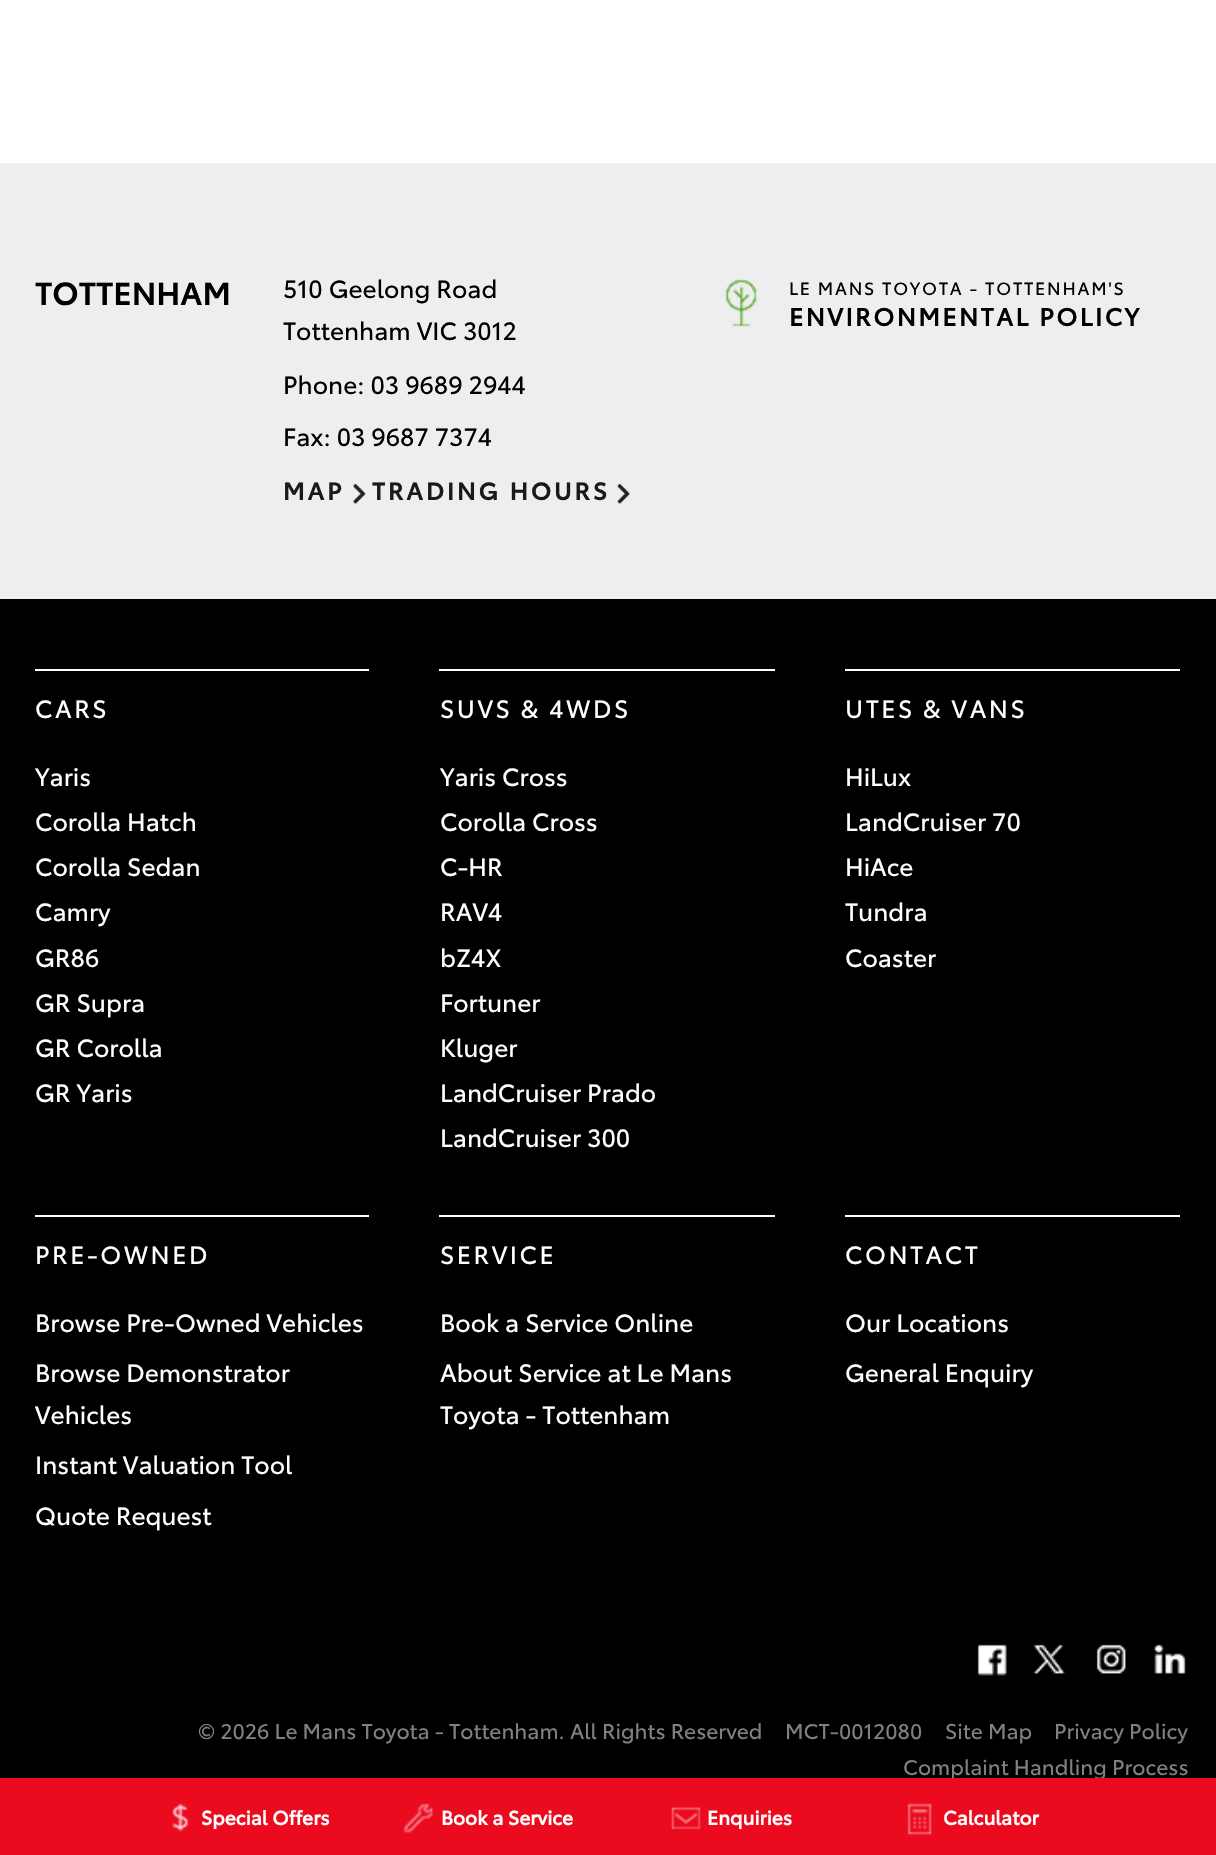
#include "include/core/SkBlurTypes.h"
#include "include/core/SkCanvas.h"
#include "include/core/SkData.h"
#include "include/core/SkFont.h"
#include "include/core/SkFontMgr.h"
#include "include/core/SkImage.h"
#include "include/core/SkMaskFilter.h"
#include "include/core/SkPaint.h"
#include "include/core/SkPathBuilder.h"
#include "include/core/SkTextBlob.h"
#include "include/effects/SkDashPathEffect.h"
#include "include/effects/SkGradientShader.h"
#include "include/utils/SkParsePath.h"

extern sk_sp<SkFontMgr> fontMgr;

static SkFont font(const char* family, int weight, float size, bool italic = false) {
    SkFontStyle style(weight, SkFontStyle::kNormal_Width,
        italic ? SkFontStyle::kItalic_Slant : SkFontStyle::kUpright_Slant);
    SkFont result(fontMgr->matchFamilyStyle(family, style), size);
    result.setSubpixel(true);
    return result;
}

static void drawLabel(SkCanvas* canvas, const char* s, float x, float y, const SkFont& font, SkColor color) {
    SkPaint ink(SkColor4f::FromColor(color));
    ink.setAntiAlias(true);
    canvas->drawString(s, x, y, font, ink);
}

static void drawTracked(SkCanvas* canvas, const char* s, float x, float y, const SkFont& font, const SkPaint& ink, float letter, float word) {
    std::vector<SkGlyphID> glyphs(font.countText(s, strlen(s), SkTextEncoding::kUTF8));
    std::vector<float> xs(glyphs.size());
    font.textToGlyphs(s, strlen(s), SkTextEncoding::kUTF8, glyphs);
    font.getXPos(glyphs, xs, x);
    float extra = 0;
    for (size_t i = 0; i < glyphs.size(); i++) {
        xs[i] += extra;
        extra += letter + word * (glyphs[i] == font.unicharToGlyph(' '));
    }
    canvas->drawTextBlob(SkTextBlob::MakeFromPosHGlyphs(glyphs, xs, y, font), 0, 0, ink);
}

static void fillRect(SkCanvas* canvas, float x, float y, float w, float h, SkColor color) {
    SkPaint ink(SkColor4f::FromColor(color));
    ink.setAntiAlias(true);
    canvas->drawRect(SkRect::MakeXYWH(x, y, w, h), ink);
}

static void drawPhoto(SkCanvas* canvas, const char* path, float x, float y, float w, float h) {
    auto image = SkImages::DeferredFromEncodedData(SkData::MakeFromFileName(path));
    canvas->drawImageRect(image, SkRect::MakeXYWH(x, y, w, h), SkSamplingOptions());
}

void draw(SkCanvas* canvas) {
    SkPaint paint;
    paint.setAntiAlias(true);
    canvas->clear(0xFFFFFFFF);
    fillRect(canvas, 0, 163, 1216, 436, 0xFFEEEEEE);
    SkFont font1 = font("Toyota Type", 600, 31.5f);
    drawLabel(canvas, "TOTTENHAM", 35, 305, font1, 0xFF000000);
    SkFont font2 = font("Toyota Type", 400, 24.5f);
    drawLabel(canvas, "510 Geelong Road", 283, 298, font2, 0xFF000000);
    drawLabel(canvas, "Tottenham VIC 3012", 283, 340, font2, 0xFF000000);
    drawLabel(canvas, "Phone: 03 9689 2944", 283, 394, font2, 0xFF000000);
    drawLabel(canvas, "Fax: 03 9687 7374", 283, 446, font2, 0xFF000000);
    SkFont font3 = font("Toyota Type", 600, 24.5f);
    paint.setColor(0xFF1A1A1A);
    drawTracked(canvas, "MAP", 283, 500, font3, paint, 2.5f, 0);
    drawPhoto(canvas, "assets/img1.png", 353, 484, 13, 20);
    drawTracked(canvas, "TRADING HOURS", 372, 500, font3, paint, 2.5f, 1);
    drawPhoto(canvas, "assets/img2.png", 617, 484, 13, 20);
    drawPhoto(canvas, "assets/img3.png", 725, 279, 32, 48);
    SkFont font4 = font("Toyota Type", 400, 17.5f);
    paint.setColor(0xFF000000);
    drawTracked(canvas, "LE MANS TOYOTA - TOTTENHAM'S", 789, 295, font4, paint, 1.75f, 0);
    SkFont font5 = font("Toyota Type", 700, 24.5f);
    drawTracked(canvas, "ENVIRONMENTAL POLICY", 789, 326, font5, paint, 2.5f, 0);
    fillRect(canvas, 0, 599, 1216, 1179, 0xFF000000);
    fillRect(canvas, 35, 669, 334, 2, 0xFFFFFFFF);
    paint.setColor(0xFFFFFFFF);
    drawTracked(canvas, "CARS", 35, 718, font2, paint, 2.5f, 0);
    drawLabel(canvas, "Yaris", 35, 786, font2, 0xFFFFFFFF);
    drawLabel(canvas, "Corolla Hatch", 35, 831, font2, 0xFFFFFFFF);
    drawLabel(canvas, "Corolla Sedan", 35, 876, font2, 0xFFFFFFFF);
    drawLabel(canvas, "Camry", 35, 921, font2, 0xFFFFFFFF);
    drawLabel(canvas, "GR86", 35, 967, font2, 0xFFFFFFFF);
    drawLabel(canvas, "GR Supra", 35, 1012, font2, 0xFFFFFFFF);
    drawLabel(canvas, "GR Corolla", 35, 1057, font2, 0xFFFFFFFF);
    drawLabel(canvas, "GR Yaris", 35, 1102, font2, 0xFFFFFFFF);
    fillRect(canvas, 439, 669, 336, 2, 0xFFFFFFFF);
    drawTracked(canvas, "SUVS & 4WDS", 440, 718, font2, paint, 2.5f, 0);
    drawLabel(canvas, "Yaris Cross", 440, 786, font2, 0xFFFFFFFF);
    drawLabel(canvas, "Corolla Cross", 440, 831, font2, 0xFFFFFFFF);
    drawLabel(canvas, "C-HR", 440, 876, font2, 0xFFFFFFFF);
    drawLabel(canvas, "RAV4", 440, 921, font2, 0xFFFFFFFF);
    drawLabel(canvas, "bZ4X", 440, 967, font2, 0xFFFFFFFF);
    drawLabel(canvas, "Fortuner", 440, 1012, font2, 0xFFFFFFFF);
    drawLabel(canvas, "Kluger", 440, 1057, font2, 0xFFFFFFFF);
    drawLabel(canvas, "LandCruiser Prado", 440, 1102, font2, 0xFFFFFFFF);
    drawLabel(canvas, "LandCruiser 300", 440, 1147, font2, 0xFFFFFFFF);
    fillRect(canvas, 845, 669, 335, 2, 0xFFFFFFFF);
    drawTracked(canvas, "UTES & VANS", 845, 718, font2, paint, 2.5f, 0);
    drawLabel(canvas, "HiLux", 845, 786, font2, 0xFFFFFFFF);
    drawLabel(canvas, "LandCruiser 70", 845, 831, font2, 0xFFFFFFFF);
    drawLabel(canvas, "HiAce", 845, 876, font2, 0xFFFFFFFF);
    drawLabel(canvas, "Tundra", 845, 921, font2, 0xFFFFFFFF);
    drawLabel(canvas, "Coaster", 845, 967, font2, 0xFFFFFFFF);
    fillRect(canvas, 35, 1215, 334, 2, 0xFFFFFFFF);
    drawTracked(canvas, "PRE-OWNED", 35, 1264, font2, paint, 2.5f, 0);
    drawLabel(canvas, "Browse Pre-Owned Vehicles", 35, 1332, font2, 0xFFFFFFFF);
    drawLabel(canvas, "Browse Demonstrator", 35, 1382, font2, 0xFFFFFFFF);
    drawLabel(canvas, "Vehicles", 35, 1424, font2, 0xFFFFFFFF);
    drawLabel(canvas, "Instant Valuation Tool", 35, 1474, font2, 0xFFFFFFFF);
    drawLabel(canvas, "Quote Request", 35, 1525, font2, 0xFFFFFFFF);
    fillRect(canvas, 439, 1215, 336, 2, 0xFFFFFFFF);
    drawTracked(canvas, "SERVICE", 440, 1264, font2, paint, 2.5f, 0);
    drawLabel(canvas, "Book a Service Online", 440, 1332, font2, 0xFFFFFFFF);
    drawLabel(canvas, "About Service at Le Mans", 440, 1382, font2, 0xFFFFFFFF);
    drawLabel(canvas, "Toyota - Tottenham", 440, 1424, font2, 0xFFFFFFFF);
    fillRect(canvas, 845, 1215, 335, 2, 0xFFFFFFFF);
    drawTracked(canvas, "CONTACT", 845, 1264, font2, paint, 2.5f, 0);
    drawLabel(canvas, "Our Locations", 845, 1332, font2, 0xFFFFFFFF);
    drawLabel(canvas, "General Enquiry", 845, 1382, font2, 0xFFFFFFFF);
    drawPhoto(canvas, "assets/img4.png", 977, 1644, 30, 32);
    drawPhoto(canvas, "assets/img5.png", 1033, 1644, 32, 30);
    drawPhoto(canvas, "assets/img6.png", 1096, 1644, 30, 30);
    drawPhoto(canvas, "assets/img7.png", 1154, 1644, 32, 30);
    SkFont font6 = font("Toyota Type", 400, 21);
    drawLabel(canvas, "© 2026 Le Mans Toyota - Tottenham. All Rights Reserved", 198, 1739, font6, 0xFF808080);
    drawLabel(canvas, "MCT-0012080", 785, 1739, font6, 0xFF808080);
    drawLabel(canvas, "Site Map", 945, 1739, font6, 0xFF808080);
    drawLabel(canvas, "Privacy Policy", 1054, 1739, font6, 0xFF808080);
    drawLabel(canvas, "Complaint Handling Process", 903, 1775, font6, 0xFF808080);
    fillRect(canvas, 0, 1778, 1216, 77, 0xFFEB0A1E);
    drawPhoto(canvas, "assets/img8.png", 172, 1803, 17, 29);
    SkFont font7 = font("Toyota Type", 700, 19.25f);
    drawLabel(canvas, "Special Offers", 201, 1825, font7, 0xFFFFFFFF);
    drawPhoto(canvas, "assets/img9.png", 403, 1803, 31, 31);
    drawLabel(canvas, "Book a Service", 441, 1825, font7, 0xFFFFFFFF);
    drawPhoto(canvas, "assets/img10.png", 671, 1807, 30, 23);
    drawLabel(canvas, "Enquiries", 707, 1825, font7, 0xFFFFFFFF);
    drawPhoto(canvas, "assets/img11.png", 907, 1803, 25, 32);
    drawLabel(canvas, "Calculator", 943, 1825, font7, 0xFFFFFFFF);
}
